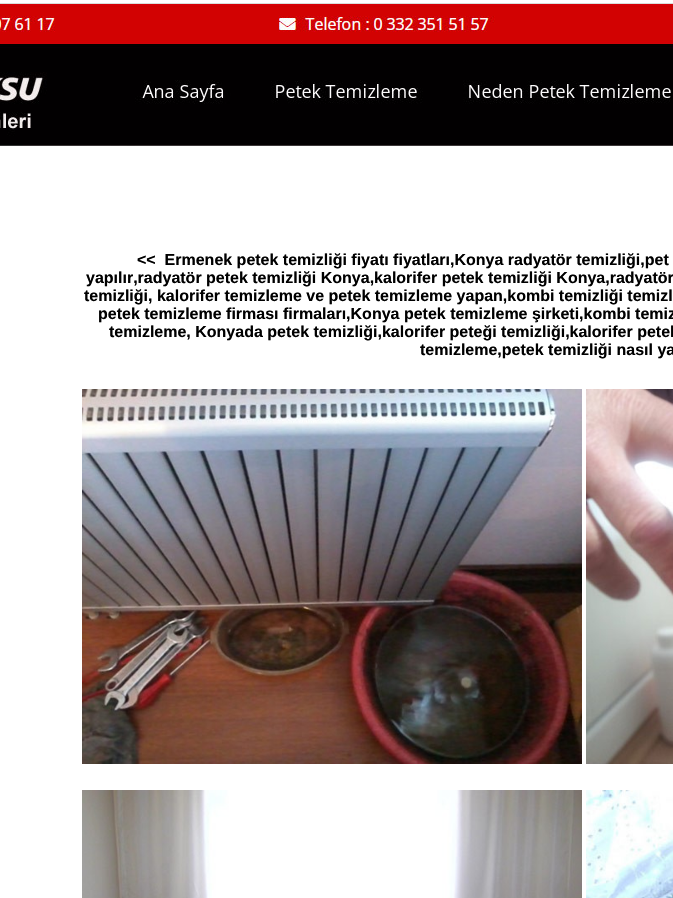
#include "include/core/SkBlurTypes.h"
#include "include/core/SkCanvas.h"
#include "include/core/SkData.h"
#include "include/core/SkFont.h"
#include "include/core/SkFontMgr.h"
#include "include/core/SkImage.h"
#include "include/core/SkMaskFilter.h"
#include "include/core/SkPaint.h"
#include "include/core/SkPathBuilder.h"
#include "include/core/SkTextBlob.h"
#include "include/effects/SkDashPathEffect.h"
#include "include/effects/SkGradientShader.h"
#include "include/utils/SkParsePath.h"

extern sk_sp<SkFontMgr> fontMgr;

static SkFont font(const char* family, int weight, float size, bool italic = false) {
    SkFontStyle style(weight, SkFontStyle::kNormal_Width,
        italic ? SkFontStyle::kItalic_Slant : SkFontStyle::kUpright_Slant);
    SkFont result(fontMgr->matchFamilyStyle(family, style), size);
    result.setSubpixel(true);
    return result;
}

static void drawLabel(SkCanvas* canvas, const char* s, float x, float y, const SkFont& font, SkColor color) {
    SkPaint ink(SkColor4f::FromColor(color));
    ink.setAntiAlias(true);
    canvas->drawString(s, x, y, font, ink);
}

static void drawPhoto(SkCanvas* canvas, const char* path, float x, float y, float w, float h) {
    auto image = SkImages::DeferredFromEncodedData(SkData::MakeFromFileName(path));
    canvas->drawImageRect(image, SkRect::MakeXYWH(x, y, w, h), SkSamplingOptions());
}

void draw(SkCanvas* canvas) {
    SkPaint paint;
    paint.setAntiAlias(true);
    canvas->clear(0xFFFFFFFF);
    drawPhoto(canvas, "assets/img1.png", 0, 3, 673, 143);
    SkFont font1 = font("Liberation Sans", 700, 16);
    drawLabel(canvas, "<<  Ermenek petek temizliği fiyatı fiyatları,Konya radyatör temizliği,pet", 137, 265, font1, 0xFF000000);
    drawLabel(canvas, "yapılır,radyatör petek temizliği Konya,kalorifer petek temizliği Konya,radyatör", 86, 283, font1, 0xFF000000);
    drawLabel(canvas, "temizliği, kalorifer temizleme ve petek temizleme yapan,kombi temizliği temizl", 84, 301, font1, 0xFF000000);
    drawLabel(canvas, "petek temizleme firması firmaları,Konya petek temizleme şirketi,kombi temiz", 98, 319, font1, 0xFF000000);
    drawLabel(canvas, "temizleme, Konyada petek temizliği,kalorifer peteği temizliği,kalorifer petek", 109, 337, font1, 0xFF000000);
    drawLabel(canvas, "temizleme,petek temizliği nasıl ya", 420, 355, font1, 0xFF000000);
    drawPhoto(canvas, "assets/img2.png", 82, 389, 591, 509);
}
